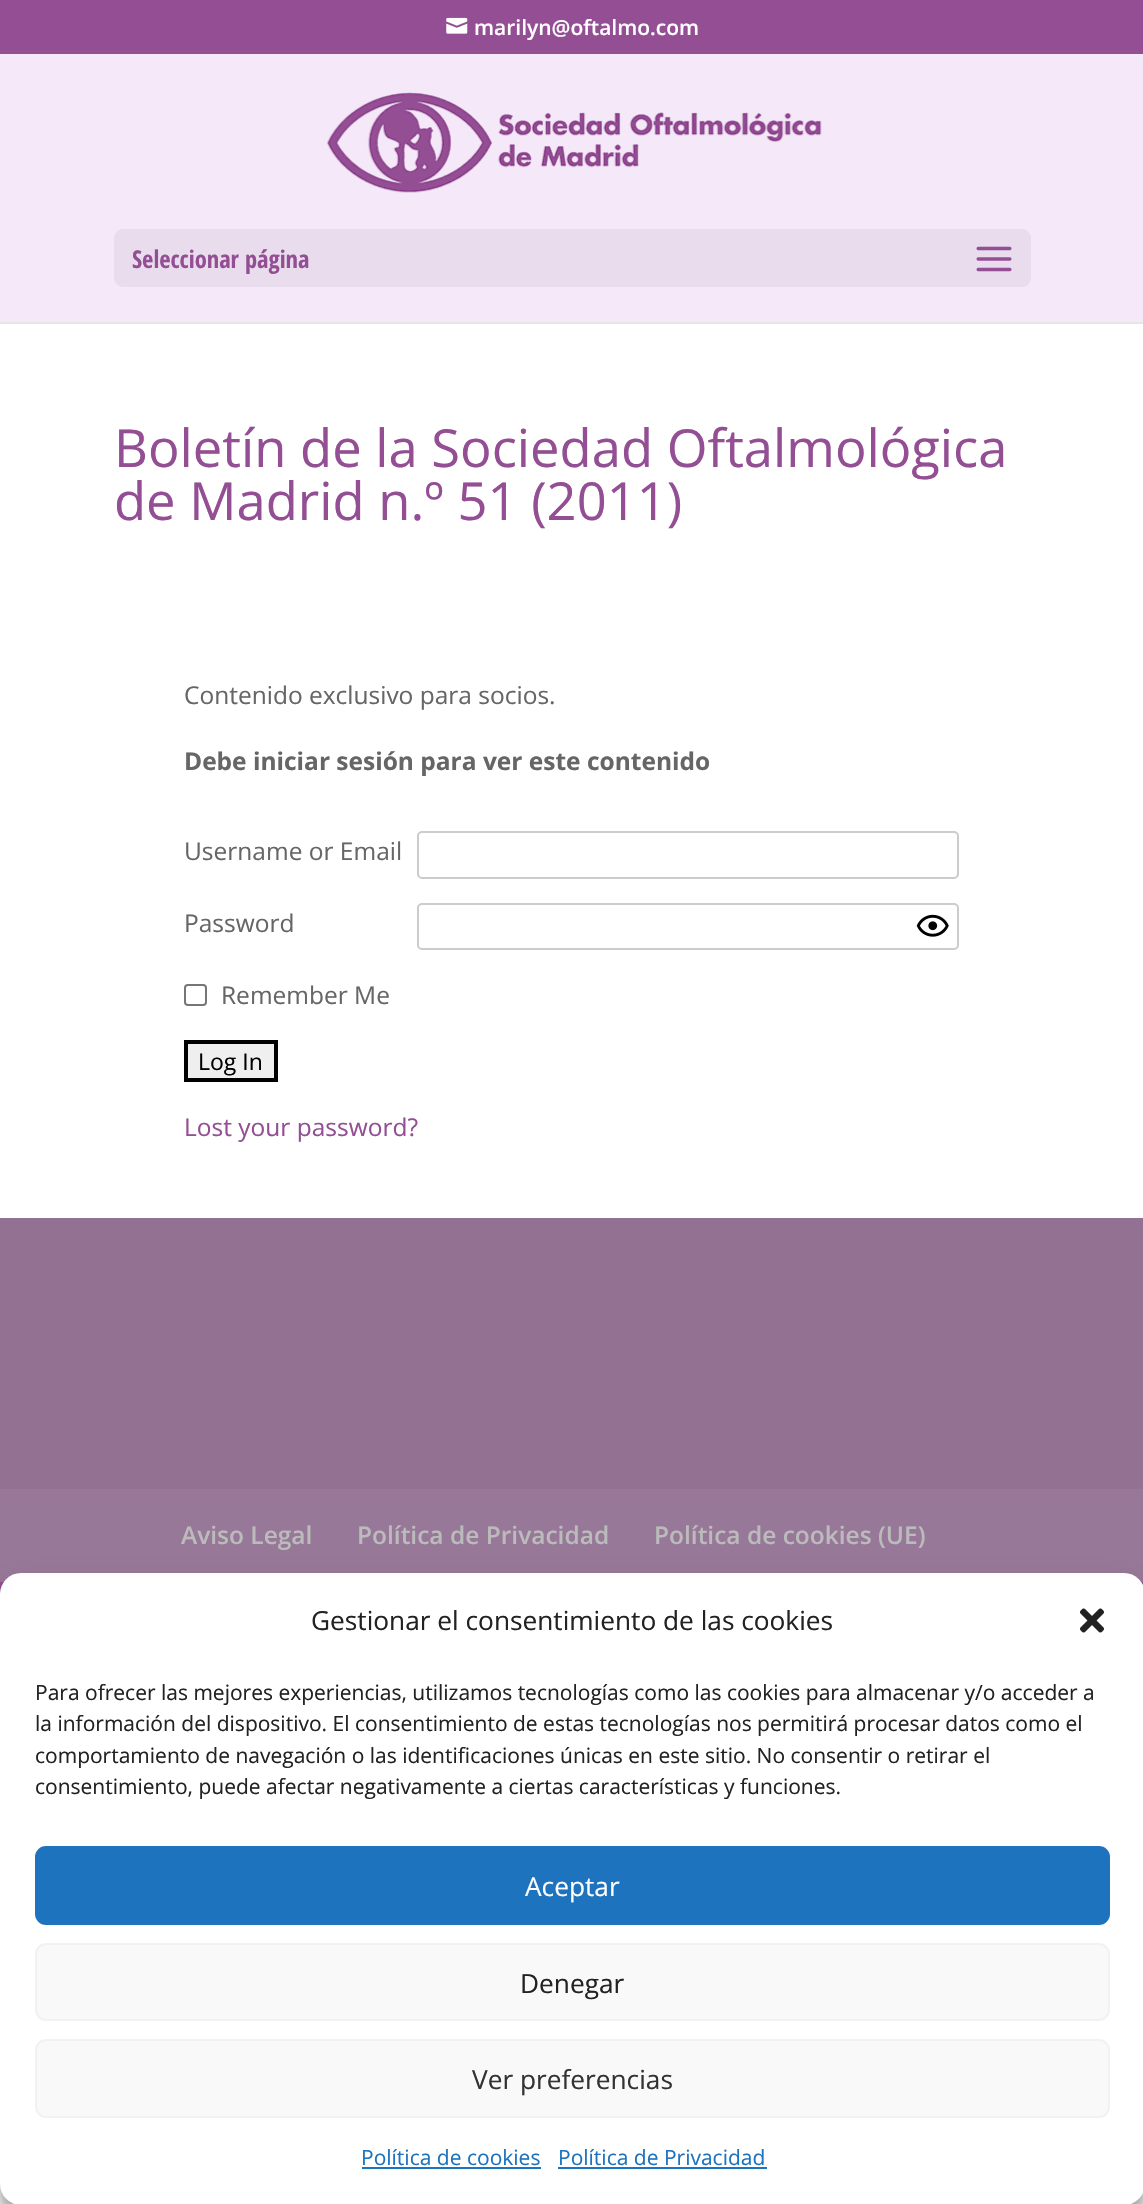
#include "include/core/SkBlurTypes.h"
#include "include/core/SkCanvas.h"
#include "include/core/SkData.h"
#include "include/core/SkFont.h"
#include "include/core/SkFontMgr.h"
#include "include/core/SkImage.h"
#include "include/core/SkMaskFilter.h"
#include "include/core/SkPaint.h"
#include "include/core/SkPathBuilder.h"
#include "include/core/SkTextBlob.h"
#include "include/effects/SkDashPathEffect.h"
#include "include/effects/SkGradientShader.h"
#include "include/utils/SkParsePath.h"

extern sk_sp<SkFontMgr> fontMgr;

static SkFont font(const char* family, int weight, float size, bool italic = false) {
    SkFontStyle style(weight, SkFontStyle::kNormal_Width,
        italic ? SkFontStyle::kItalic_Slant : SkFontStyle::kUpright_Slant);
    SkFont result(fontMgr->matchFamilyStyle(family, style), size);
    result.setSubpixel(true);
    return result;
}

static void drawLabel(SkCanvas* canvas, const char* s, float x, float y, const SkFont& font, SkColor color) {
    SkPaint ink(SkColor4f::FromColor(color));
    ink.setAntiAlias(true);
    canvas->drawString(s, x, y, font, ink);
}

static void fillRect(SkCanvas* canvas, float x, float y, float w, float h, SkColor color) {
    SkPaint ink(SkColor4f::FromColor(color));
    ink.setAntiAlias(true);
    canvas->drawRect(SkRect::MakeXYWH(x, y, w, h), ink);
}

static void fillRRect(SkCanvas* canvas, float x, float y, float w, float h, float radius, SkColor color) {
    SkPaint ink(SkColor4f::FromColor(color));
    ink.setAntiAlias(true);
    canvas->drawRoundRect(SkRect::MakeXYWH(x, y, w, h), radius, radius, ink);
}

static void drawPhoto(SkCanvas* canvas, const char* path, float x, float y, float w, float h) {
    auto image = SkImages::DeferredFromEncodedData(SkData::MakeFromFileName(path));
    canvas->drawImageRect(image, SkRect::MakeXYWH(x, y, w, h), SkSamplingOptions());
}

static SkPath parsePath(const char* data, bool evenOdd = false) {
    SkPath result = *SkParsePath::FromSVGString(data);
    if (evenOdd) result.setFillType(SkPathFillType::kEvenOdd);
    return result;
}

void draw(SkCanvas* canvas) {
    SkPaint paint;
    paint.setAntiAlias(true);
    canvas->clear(0xFFFFFFFF);
    fillRect(canvas, 0, 0, 1143, 54, 0xFF934E94);
    drawPhoto(canvas, "assets/img1.png", 446, 17, 22, 17);
    SkFont font1 = font("Open Sans", 600, 21);
    drawLabel(canvas, "marilyn@oftalmo.com", 474, 35, font1, 0xFFFFFFFF);
    paint.setColor(0xFFE6E6E6);
    canvas->drawPath(parsePath("M0 322V324H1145V56H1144V322Z"), paint);
    fillRect(canvas, 0, 54, 1143, 268, 0xFFF4E8F9);
    drawPhoto(canvas, "assets/img2.png", 326, 92, 496, 101);
    fillRRect(canvas, 114, 229, 917, 58, 9, 0xFFE8DCED);
    SkFont font2 = font("Open Sans Condensed", 700, 24.5f);
    drawLabel(canvas, "Seleccionar página", 132, 268, font2, 0xFF934E94);
    drawPhoto(canvas, "assets/img3.png", 976, 246, 36, 26);
    SkFont font3 = font("Open Sans", 400, 52.5f);
    drawLabel(canvas, "Boletín de la Sociedad Oftalmológica", 114, 467, font3, 0xFF934E94);
    drawLabel(canvas, "de Madrid n.º 51 (2011)", 114, 520, font3, 0xFF934E94);
    SkFont font4 = font("Open Sans", 400, 24.5f);
    drawLabel(canvas, "Contenido exclusivo para socios.", 184, 704, font4, 0xFF666666);
    SkFont font5 = font("Open Sans", 700, 24.5f);
    drawLabel(canvas, "Debe iniciar sesión para ver este contenido", 184, 770, font5, 0xFF666666);
    drawLabel(canvas, "Username or Email", 184, 860, font4, 0xFF666666);
    paint.setStroke(true);
    paint.setStrokeWidth(2);
    paint.setColor(0xFFCCCCCC);
    canvas->drawRoundRect(SkRect::MakeXYWH(418, 832, 540, 46), 4, 4, paint);
    drawLabel(canvas, "Password", 184, 932, font4, 0xFF666666);
    canvas->drawRoundRect(SkRect::MakeXYWH(418, 904, 540, 45), 4, 4, paint);
    drawPhoto(canvas, "assets/img4.png", 916, 914, 33, 23);
    paint.setColor(0xFF767676);
    canvas->drawRoundRect(SkRect::MakeXYWH(185, 985, 21, 20), 3, 3, paint);
    drawLabel(canvas, "Remember Me", 221, 1004, font4, 0xFF666666);
    paint.setStroke(false);
    paint.setColor(0xFFEFEFEF);
    canvas->drawRect(SkRect::MakeXYWH(186, 1042, 90, 38), paint);
    paint.setStroke(true);
    paint.setStrokeWidth(4);
    paint.setColor(0xFF000000);
    canvas->drawRect(SkRect::MakeXYWH(186, 1042, 90, 38), paint);
    SkFont font6 = font("Open Sans", 400, 23);
    drawLabel(canvas, "Log In", 198, 1070, font6, 0xFF000000);
    drawLabel(canvas, "Lost your password?", 184, 1136, font4, 0xFF934E94);
    fillRect(canvas, 0, 1218, 1143, 271, 0xFF937193);
    fillRect(canvas, 0, 1489, 1143, 93, 0xFF987898);
    SkFont font7 = font("Open Sans", 600, 24.5f);
    drawLabel(canvas, "Aviso Legal", 181, 1544, font7, 0xFFBBBBBB);
    drawLabel(canvas, "Política de Privacidad", 357, 1544, font7, 0xFFBBBBBB);
    drawLabel(canvas, "Política de cookies (UE)", 654, 1544, font7, 0xFFBBBBBB);
    fillRect(canvas, 0, 1582, 1143, 12, 0xFF934E94);
    paint.setStroke(false);
    paint.setColor(0x3B000000);
    paint.setMaskFilter(SkMaskFilter::MakeBlur(kNormal_SkBlurStyle, 5));
    canvas->drawRoundRect(SkRect::MakeXYWH(0, 1584, 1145, 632), 21, 21, paint);
    paint.setMaskFilter(nullptr);
    paint.setColor(0x30000000);
    paint.setMaskFilter(SkMaskFilter::MakeBlur(kNormal_SkBlurStyle, 17.5f));
    canvas->drawRoundRect(SkRect::MakeXYWH(0, 1591, 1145, 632), 21, 21, paint);
    paint.setMaskFilter(nullptr);
    fillRRect(canvas, 0, 1573, 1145, 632, 21, 0xFFFFFFFF);
    SkFont font8 = font("Open Sans", 400, 26.25f);
    drawLabel(canvas, "Gestionar el consentimiento de las cookies", 311, 1630, font8, 0xFF222222);
    drawPhoto(canvas, "assets/img5.png", 1080, 1608, 24, 25);
    SkFont font9 = font("Open Sans", 400, 21);
    drawLabel(canvas, "Para ofrecer las mejores experiencias, utilizamos tecnologías como las cookies para almacenar y/o acceder a", 35, 1700, font9, 0xFF222222);
    drawLabel(canvas, "la información del dispositivo. El consentimiento de estas tecnologías nos permitirá procesar datos como el", 35, 1731, font9, 0xFF222222);
    drawLabel(canvas, "comportamiento de navegación o las identificaciones únicas en este sitio. No consentir o retirar el", 35, 1763, font9, 0xFF222222);
    drawLabel(canvas, "consentimiento, puede afectar negativamente a ciertas características y funciones.", 35, 1794, font9, 0xFF222222);
    paint.setColor(0xFF1E73BE);
    canvas->drawRoundRect(SkRect::MakeXYWH(36, 1847, 1073, 77), 10, 10, paint);
    paint.setStroke(true);
    paint.setStrokeWidth(2);
    canvas->drawRoundRect(SkRect::MakeXYWH(36, 1847, 1073, 77), 10, 10, paint);
    drawLabel(canvas, "Aceptar", 525, 1896, font8, 0xFFFFFFFF);
    paint.setStroke(false);
    paint.setColor(0xFFF9F9F9);
    canvas->drawRoundRect(SkRect::MakeXYWH(36, 1944, 1073, 76), 10, 10, paint);
    paint.setStroke(true);
    paint.setColor(0xFFF2F2F2);
    canvas->drawRoundRect(SkRect::MakeXYWH(36, 1944, 1073, 76), 10, 10, paint);
    drawLabel(canvas, "Denegar", 520, 1993, font8, 0xFF222222);
    paint.setStroke(false);
    paint.setColor(0xFFF9F9F9);
    canvas->drawRoundRect(SkRect::MakeXYWH(36, 2040, 1073, 77), 10, 10, paint);
    paint.setStroke(true);
    paint.setColor(0xFFF2F2F2);
    canvas->drawRoundRect(SkRect::MakeXYWH(36, 2040, 1073, 77), 10, 10, paint);
    drawLabel(canvas, "Ver preferencias", 472, 2089, font8, 0xFF333333);
    drawLabel(canvas, "Política de cookies", 361, 2165, font9, 0xFF1E73BE);
    fillRect(canvas, 362, 2167, 179, 2, 0xFF1E73BE);
    drawLabel(canvas, "Política de Privacidad", 558, 2165, font9, 0xFF1E73BE);
    fillRect(canvas, 558, 2167, 209, 2, 0xFF1E73BE);
}
